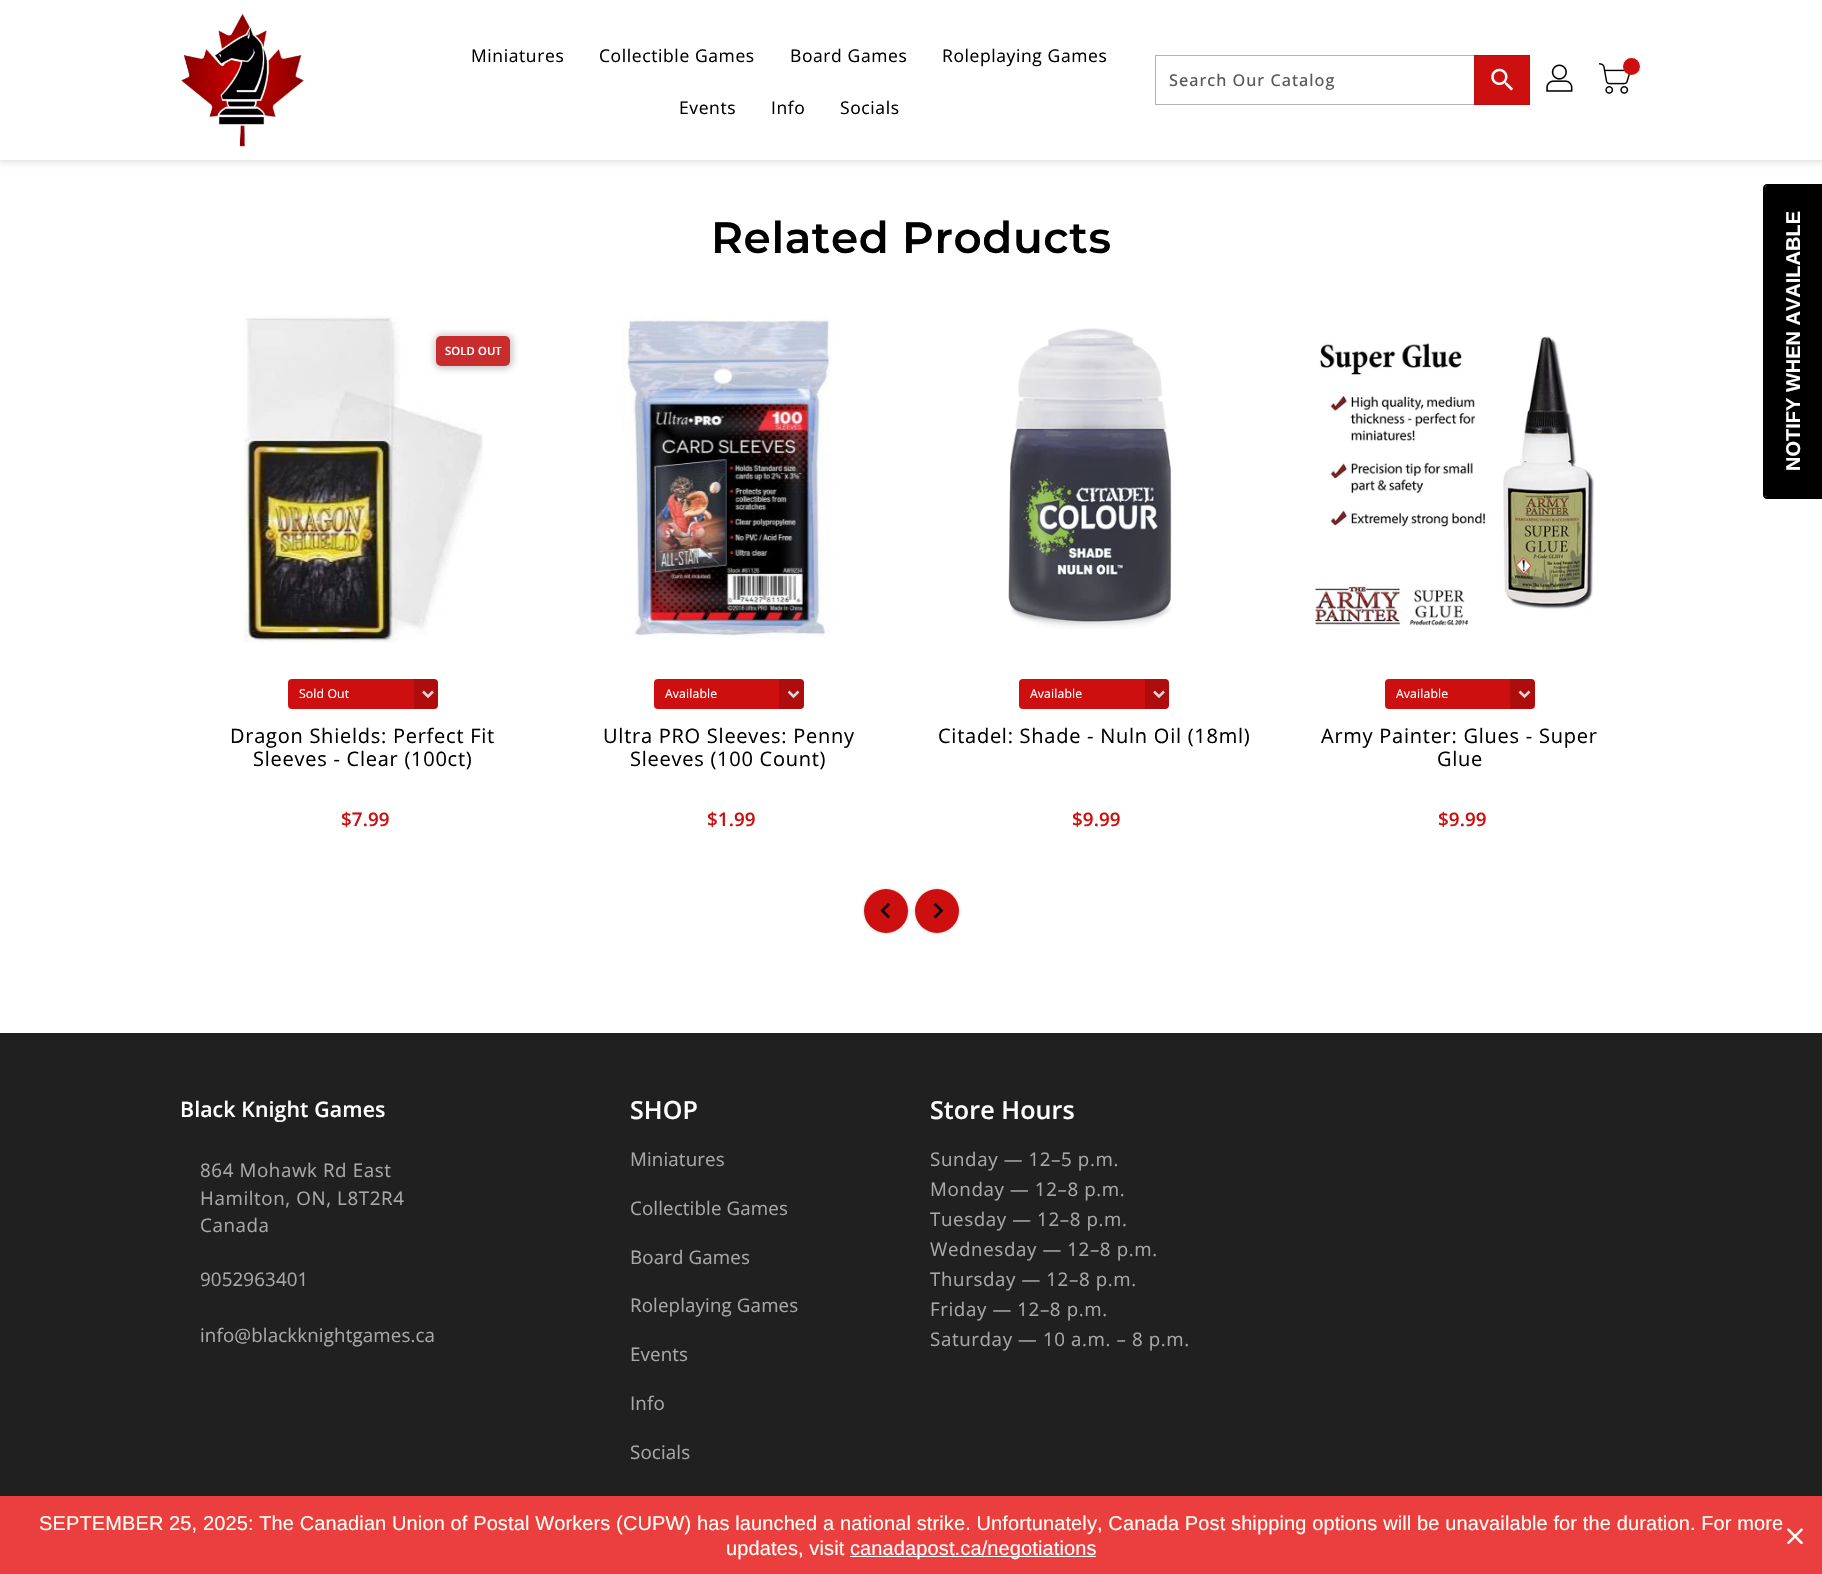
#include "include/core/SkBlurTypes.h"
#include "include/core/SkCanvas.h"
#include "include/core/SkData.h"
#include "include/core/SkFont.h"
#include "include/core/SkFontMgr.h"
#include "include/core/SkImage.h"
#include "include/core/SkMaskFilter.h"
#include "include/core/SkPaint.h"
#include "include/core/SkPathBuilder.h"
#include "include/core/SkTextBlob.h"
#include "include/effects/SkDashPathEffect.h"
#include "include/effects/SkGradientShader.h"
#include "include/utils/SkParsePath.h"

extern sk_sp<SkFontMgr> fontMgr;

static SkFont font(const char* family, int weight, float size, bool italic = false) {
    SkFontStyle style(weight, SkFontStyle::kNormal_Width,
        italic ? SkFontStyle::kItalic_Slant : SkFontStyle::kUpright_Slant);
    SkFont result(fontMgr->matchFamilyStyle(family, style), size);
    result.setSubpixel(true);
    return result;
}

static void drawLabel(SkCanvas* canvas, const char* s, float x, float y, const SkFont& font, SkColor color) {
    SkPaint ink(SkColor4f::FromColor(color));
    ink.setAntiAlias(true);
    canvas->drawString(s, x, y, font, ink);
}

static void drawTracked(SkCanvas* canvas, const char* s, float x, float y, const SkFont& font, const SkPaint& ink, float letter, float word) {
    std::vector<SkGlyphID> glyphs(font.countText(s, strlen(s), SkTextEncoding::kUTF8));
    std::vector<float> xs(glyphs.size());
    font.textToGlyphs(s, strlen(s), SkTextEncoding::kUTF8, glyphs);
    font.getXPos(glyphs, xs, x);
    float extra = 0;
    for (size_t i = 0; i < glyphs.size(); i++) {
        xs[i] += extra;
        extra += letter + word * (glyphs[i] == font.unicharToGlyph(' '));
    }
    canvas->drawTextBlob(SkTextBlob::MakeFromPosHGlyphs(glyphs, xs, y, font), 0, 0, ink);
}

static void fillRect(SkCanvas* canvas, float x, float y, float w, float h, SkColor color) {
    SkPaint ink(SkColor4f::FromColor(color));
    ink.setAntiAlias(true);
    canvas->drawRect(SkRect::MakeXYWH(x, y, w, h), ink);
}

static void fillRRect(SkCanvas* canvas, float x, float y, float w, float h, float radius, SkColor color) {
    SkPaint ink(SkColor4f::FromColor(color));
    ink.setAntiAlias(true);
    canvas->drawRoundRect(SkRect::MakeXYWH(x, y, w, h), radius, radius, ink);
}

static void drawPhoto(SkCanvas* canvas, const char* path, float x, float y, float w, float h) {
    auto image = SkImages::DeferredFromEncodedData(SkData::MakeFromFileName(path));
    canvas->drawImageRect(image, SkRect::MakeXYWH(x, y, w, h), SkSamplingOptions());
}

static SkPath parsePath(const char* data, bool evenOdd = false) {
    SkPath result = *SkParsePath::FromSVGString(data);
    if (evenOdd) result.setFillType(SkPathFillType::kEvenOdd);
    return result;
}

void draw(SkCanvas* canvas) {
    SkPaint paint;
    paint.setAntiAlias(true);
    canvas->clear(0xFFFFFFFF);
    paint.setColor(0x1A000000);
    paint.setMaskFilter(SkMaskFilter::MakeBlur(kNormal_SkBlurStyle, 3));
    canvas->drawRect(SkRect::MakeXYWH(-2, -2, 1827, 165), paint);
    paint.setMaskFilter(nullptr);
    fillRect(canvas, 0, 0, 1822, 160, 0xFFFFFFFF);
    drawPhoto(canvas, "assets/img1.png", 181, 13, 123, 134);
    SkFont font1 = font("Open Sans", 400, 17.5f);
    paint.setColor(0xFF000000);
    drawTracked(canvas, "Miniatures", 471, 62, font1, paint, 0.6f, 0);
    drawTracked(canvas, "Collectible Games", 599, 62, font1, paint, 0.6f, 0);
    drawTracked(canvas, "Board Games", 790, 62, font1, paint, 0.6f, 0);
    drawTracked(canvas, "Roleplaying Games", 942, 62, font1, paint, 0.6f, 0);
    drawTracked(canvas, "Events", 679, 114, font1, paint, 0.6f, 0);
    drawTracked(canvas, "Info", 771, 114, font1, paint, 0.6f, 0);
    drawTracked(canvas, "Socials", 840, 114, font1, paint, 0.6f, 0);
    paint.setStroke(true);
    paint.setStrokeWidth(1);
    paint.setColor(0xFFB3B3B3);
    canvas->drawRect(SkRect::MakeXYWH(1155.5f, 55.5f, 374, 49), paint);
    SkFont font2 = font("Open Sans", 500, 16.25f);
    paint.setStroke(false);
    paint.setColor(0xFF595959);
    drawTracked(canvas, "Search Our Catalog", 1169, 86, font2, paint, 1, 0);
    paint.setColor(0xFFCE0F0F);
    canvas->drawRect(SkRect::MakeXYWH(1474.5f, 55.5f, 55, 49), paint);
    paint.setStroke(true);
    paint.setColor(0xFFB90E0E);
    canvas->drawRect(SkRect::MakeXYWH(1474.5f, 55.5f, 55, 49), paint);
    drawPhoto(canvas, "assets/img2.png", 1491, 68, 22, 23);
    drawPhoto(canvas, "assets/img3.png", 1546, 64, 27, 28);
    drawPhoto(canvas, "assets/img4.png", 1599, 63, 31, 31);
    paint.setStroke(false);
    paint.setColor(0xFFCE0F0F);
    canvas->drawCircle(1631.5f, 66.5f, 8.5f, paint);
    SkFont font3 = font("Montserrat", 600, 43.75f);
    paint.setColor(0xFF000000);
    drawTracked(canvas, "Related Products", 711, 253, font3, paint, 0.6f, 0);
    drawPhoto(canvas, "assets/img5.png", 243, 315, 240, 328);
    paint.setColor(0x33000000);
    paint.setMaskFilter(SkMaskFilter::MakeBlur(kNormal_SkBlurStyle, 3));
    canvas->drawRoundRect(SkRect::MakeXYWH(434, 334, 79, 35), 8, 8, paint);
    paint.setMaskFilter(nullptr);
    fillRRect(canvas, 436, 336, 74, 30, 5, 0xFFC92C2C);
    SkFont font4 = font("Open Sans", 600, 11.25f);
    paint.setColor(0xFFFFFFFF);
    drawTracked(canvas, "SOLD OUT", 445, 355, font4, paint, 0.12f, 0);
    fillRRect(canvas, 288, 679, 150, 30, 4, 0xFFCE0F0F);
    paint.setStroke(true);
    paint.setStrokeWidth(2.5f);
    canvas->drawPath(parsePath("M423 691.5L428 696.5L433 691.5"), paint);
    SkFont font5 = font("Open Sans", 400, 12.25f);
    paint.setStroke(false);
    drawTracked(canvas, "Sold Out", 299, 698, font5, paint, 0.12f, 0);
    paint.setColor(0x26000000);
    canvas->drawPath(parsePath("M414 679H434C436 679 438 681 438 683V705C438 707 436 709 434 709H414Z"), paint);
    SkFont font6 = font("Open Sans", 400, 20);
    paint.setColor(0xFF000000);
    drawTracked(canvas, "Dragon Shields: Perfect Fit", 230, 743, font6, paint, 0.75f, 0);
    drawTracked(canvas, "Sleeves - Clear (100ct)", 253, 766, font6, paint, 0.75f, 0);
    SkFont font7 = font("Open Sans", 600, 18.75f);
    paint.setColor(0xFFCE0F0F);
    drawTracked(canvas, "$7.99", 341, 826, font7, paint, 0.12f, 0);
    drawPhoto(canvas, "assets/img6.png", 622, 314, 212, 324);
    fillRRect(canvas, 654, 679, 150, 30, 4, 0xFFCE0F0F);
    paint.setStroke(true);
    paint.setColor(0xFFFFFFFF);
    canvas->drawPath(parsePath("M788.5 691.5L793.5 696.5L798.5 691.5"), paint);
    paint.setStroke(false);
    drawTracked(canvas, "Available", 665, 698, font5, paint, 0.12f, 0);
    paint.setColor(0x26000000);
    canvas->drawPath(parsePath("M779 679H800C802 679 804 681 804 683V705C804 707 802 709 800 709H779Z"), paint);
    paint.setColor(0xFF000000);
    drawTracked(canvas, "Ultra PRO Sleeves: Penny", 603, 743, font6, paint, 0.75f, 0);
    drawTracked(canvas, "Sleeves (100 Count)", 630, 766, font6, paint, 0.75f, 0);
    paint.setColor(0xFFCE0F0F);
    drawTracked(canvas, "$1.99", 707, 826, font7, paint, 0.12f, 0);
    drawPhoto(canvas, "assets/img7.png", 1008, 328, 164, 301);
    fillRRect(canvas, 1019, 679, 150, 30, 4, 0xFFCE0F0F);
    paint.setStroke(true);
    paint.setColor(0xFFFFFFFF);
    canvas->drawPath(parsePath("M1154 691.5L1159 696.5L1164 691.5"), paint);
    paint.setStroke(false);
    drawTracked(canvas, "Available", 1030, 698, font5, paint, 0.12f, 0);
    paint.setColor(0x26000000);
    canvas->drawPath(parsePath("M1145 679H1165C1167 679 1169 681 1169 683V705C1169 707 1167 709 1165 709H1145Z"), paint);
    paint.setColor(0xFF000000);
    drawTracked(canvas, "Citadel: Shade - Nuln Oil (18ml)", 938, 743, font6, paint, 0.75f, 0);
    paint.setColor(0xFFCE0F0F);
    drawTracked(canvas, "$9.99", 1072, 826, font7, paint, 0.12f, 0);
    drawPhoto(canvas, "assets/img8.png", 1314, 336, 280, 290);
    fillRRect(canvas, 1385, 679, 150, 30, 4, 0xFFCE0F0F);
    paint.setStroke(true);
    paint.setColor(0xFFFFFFFF);
    canvas->drawPath(parsePath("M1519.5 691.5L1524.5 696.5L1529.5 691.5"), paint);
    paint.setStroke(false);
    drawTracked(canvas, "Available", 1396, 698, font5, paint, 0.12f, 0);
    paint.setColor(0x26000000);
    canvas->drawPath(parsePath("M1510 679H1531C1533 679 1535 681 1535 683V705C1535 707 1533 709 1531 709H1510Z"), paint);
    paint.setColor(0xFF000000);
    drawTracked(canvas, "Army Painter: Glues - Super", 1321, 743, font6, paint, 0.75f, 0);
    drawTracked(canvas, "Glue", 1437, 766, font6, paint, 0.75f, 0);
    paint.setColor(0xFFCE0F0F);
    drawTracked(canvas, "$9.99", 1438, 826, font7, paint, 0.12f, 0);
    paint.setColor(0x1A000000);
    paint.setMaskFilter(SkMaskFilter::MakeBlur(kNormal_SkBlurStyle, 1));
    canvas->drawRoundRect(SkRect::MakeXYWH(863, 888, 46, 46), 23, 23, paint);
    paint.setMaskFilter(nullptr);
    paint.setColor(0xFFCE0F0F);
    canvas->drawCircle(886, 911, 22, paint);
    drawPhoto(canvas, "assets/img9.png", 880, 902, 10, 17);
    paint.setColor(0x1A000000);
    paint.setMaskFilter(SkMaskFilter::MakeBlur(kNormal_SkBlurStyle, 1));
    canvas->drawRoundRect(SkRect::MakeXYWH(914, 888, 46, 46), 23, 23, paint);
    paint.setMaskFilter(nullptr);
    paint.setColor(0xFFCE0F0F);
    canvas->drawCircle(937, 911, 22, paint);
    drawPhoto(canvas, "assets/img10.png", 933, 902, 11, 17);
    fillRect(canvas, 0, 1033, 1822, 463, 0xFF202020);
    SkFont font8 = font("Open Sans", 600, 21.25f);
    paint.setColor(0xFFFFFFFF);
    drawTracked(canvas, "Black Knight Games", 180, 1117, font8, paint, 0.12f, 0);
    SkFont font9 = font("Open Sans", 400, 18.75f);
    paint.setColor(0xFFA8A8A8);
    drawTracked(canvas, "864 Mohawk Rd East", 200, 1177, font9, paint, 0.6f, 0);
    drawTracked(canvas, "Hamilton, ON, L8T2R4", 200, 1205, font9, paint, 0.6f, 0);
    drawTracked(canvas, "Canada", 200, 1232, font9, paint, 0.6f, 0);
    drawTracked(canvas, "9052963401", 200, 1286, font9, paint, 0.12f, 0);
    drawTracked(canvas, "info@blackknightgames.ca", 200, 1342, font9, paint, 0.12f, 0);
    SkFont font10 = font("Open Sans", 600, 25);
    paint.setColor(0xFFFFFFFF);
    drawTracked(canvas, "SHOP", 630, 1119, font10, paint, 0.12f, 0);
    paint.setColor(0xFFA8A8A8);
    drawTracked(canvas, "Miniatures", 630, 1166, font9, paint, 0.12f, 0);
    drawTracked(canvas, "Collectible Games", 630, 1215, font9, paint, 0.12f, 0);
    drawTracked(canvas, "Board Games", 630, 1264, font9, paint, 0.12f, 0);
    drawTracked(canvas, "Roleplaying Games", 630, 1312, font9, paint, 0.12f, 0);
    drawTracked(canvas, "Events", 630, 1361, font9, paint, 0.12f, 0);
    drawTracked(canvas, "Info", 630, 1410, font9, paint, 0.12f, 0);
    drawTracked(canvas, "Socials", 630, 1459, font9, paint, 0.12f, 0);
    paint.setColor(0xFFFFFFFF);
    drawTracked(canvas, "Store Hours", 930, 1119, font10, paint, 0.12f, 0);
    paint.setColor(0xFFA8A8A8);
    drawTracked(canvas, "Sunday — 12–5 p.m.", 930, 1166, font9, paint, 0.6f, 0);
    drawTracked(canvas, "Monday — 12–8 p.m.", 930, 1196, font9, paint, 0.6f, 0);
    drawTracked(canvas, "Tuesday — 12–8 p.m.", 930, 1226, font9, paint, 0.6f, 0);
    drawTracked(canvas, "Wednesday — 12–8 p.m.", 930, 1256, font9, paint, 0.6f, 0);
    drawTracked(canvas, "Thursday — 12–8 p.m.", 930, 1286, font9, paint, 0.6f, 0);
    drawTracked(canvas, "Friday — 12–8 p.m.", 930, 1316, font9, paint, 0.6f, 0);
    drawTracked(canvas, "Saturday — 10 a.m. – 8 p.m.", 930, 1346, font9, paint, 0.6f, 0);
    paint.setColor(0xFF000000);
    canvas->drawPath(parsePath("M1765 495V188C1765 187 1766 185 1767 185H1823V497H1767C1766 497 1765 496 1765 495Z"), paint);
    canvas->drawPath(parsePath("M1763 495V188C1763 186 1765 184 1767 184H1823V499H1767C1765 499 1763 497 1763 495ZM1765 495V188C1765 187 1766 185 1767 185H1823V497H1767C1766 497 1765 496 1765 495Z", true), paint);
    SkFont font11 = font("Liberation Sans", 700, 20);
    canvas->save();
    canvas->rotate(-90, 1800, 471);
    drawLabel(canvas, "NOTIFY WHEN AVAILABLE", 1800, 471, font11, 0xFFFFFFFF);
    canvas->restore();
    fillRect(canvas, 0, 1496, 1822, 78, 0xFFEB3E3E);
    SkFont font12 = font("Liberation Sans", 400, 20);
    paint.setColor(0xFFFFFEF4);
    drawTracked(canvas, "SEPTEMBER 25, 2025: The Canadian Union of Postal Workers (CUPW) has launched a national strike. Unfortunately, Canada Post shipping options will be unavailable for the duration. For more", 39, 1530, font12, paint, 0.12f, 0);
    drawTracked(canvas, "updates, visit", 726, 1555, font12, paint, 0.12f, 0);
    fillRect(canvas, 850, 1556, 246, 1, 0xFFFFFFFF);
    paint.setColor(0xFFFFFFFF);
    drawTracked(canvas, "canadapost.ca/negotiations", 850, 1555, font12, paint, 0.12f, 0);
    drawPhoto(canvas, "assets/img11.png", 1787, 1528, 16, 17);
}
